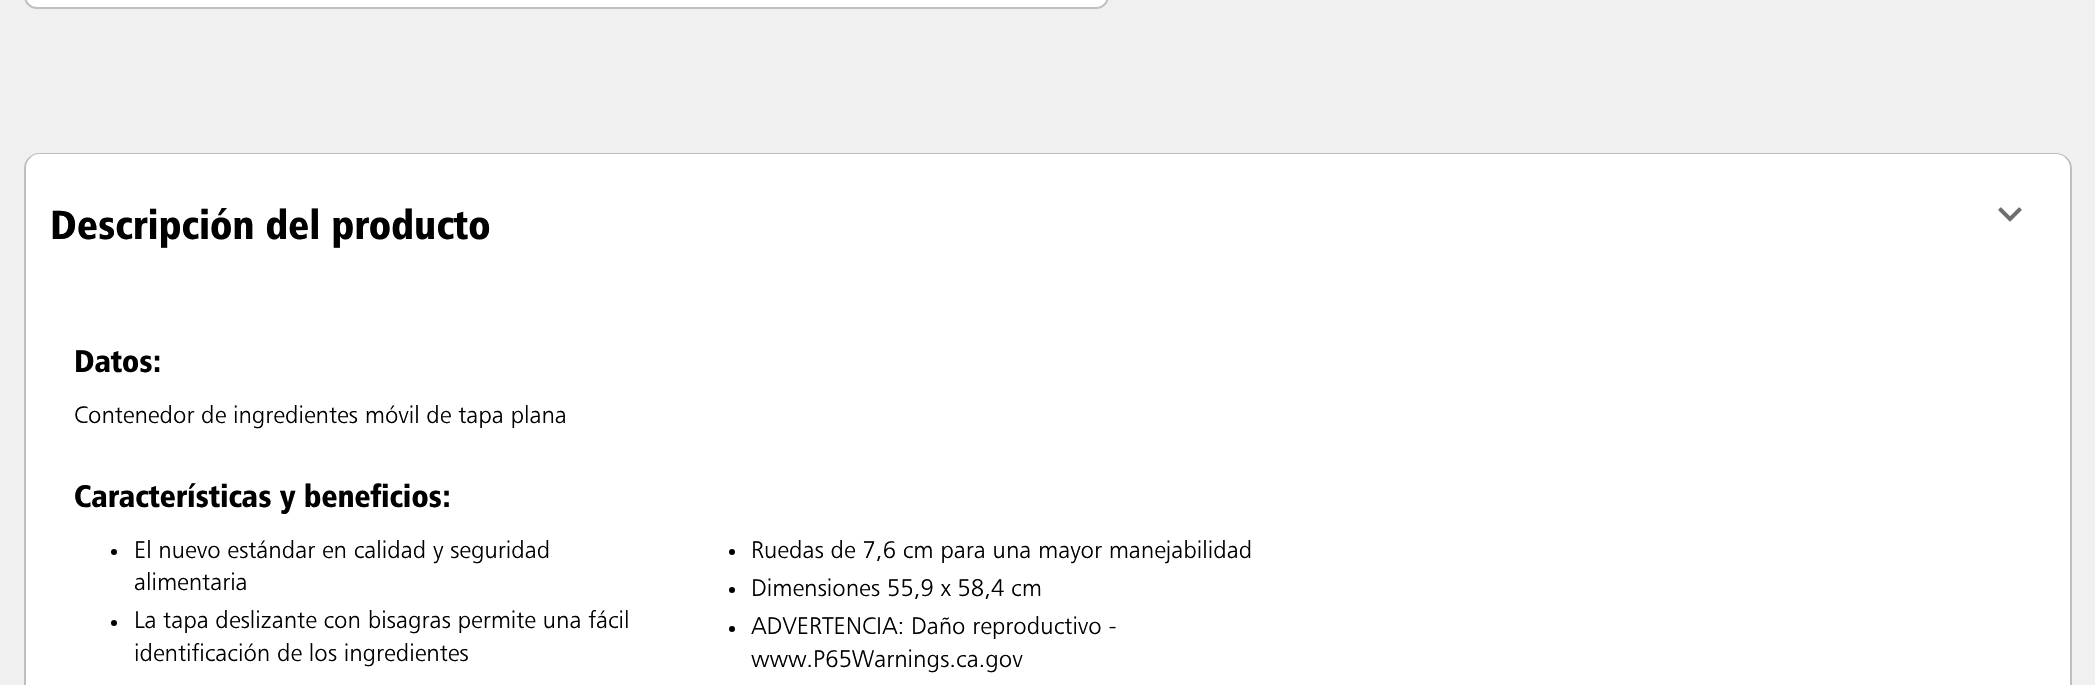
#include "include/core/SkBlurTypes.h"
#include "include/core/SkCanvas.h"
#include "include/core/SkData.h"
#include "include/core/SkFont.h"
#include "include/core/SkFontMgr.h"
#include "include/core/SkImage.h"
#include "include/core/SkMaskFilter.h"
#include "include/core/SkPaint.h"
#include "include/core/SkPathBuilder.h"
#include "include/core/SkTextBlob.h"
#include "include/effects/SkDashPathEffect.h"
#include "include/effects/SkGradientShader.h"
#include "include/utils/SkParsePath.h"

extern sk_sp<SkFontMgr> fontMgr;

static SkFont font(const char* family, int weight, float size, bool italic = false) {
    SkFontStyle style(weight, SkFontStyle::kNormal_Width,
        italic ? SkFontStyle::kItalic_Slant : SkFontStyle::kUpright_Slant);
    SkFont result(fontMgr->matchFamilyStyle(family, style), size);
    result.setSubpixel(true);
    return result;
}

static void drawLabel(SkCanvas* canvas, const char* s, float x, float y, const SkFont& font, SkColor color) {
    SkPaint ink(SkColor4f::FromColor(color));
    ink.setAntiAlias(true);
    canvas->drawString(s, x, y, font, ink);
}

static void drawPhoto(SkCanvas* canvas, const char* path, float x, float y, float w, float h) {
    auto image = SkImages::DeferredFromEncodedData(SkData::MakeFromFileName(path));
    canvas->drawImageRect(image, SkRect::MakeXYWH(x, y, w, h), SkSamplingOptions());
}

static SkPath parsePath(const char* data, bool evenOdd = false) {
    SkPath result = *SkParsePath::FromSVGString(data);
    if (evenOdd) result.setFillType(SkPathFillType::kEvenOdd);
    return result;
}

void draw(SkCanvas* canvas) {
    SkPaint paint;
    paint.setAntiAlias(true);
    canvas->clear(0xFFF0F0F0);
    paint.setColor(0xFFFFFFFF);
    canvas->drawRoundRect(SkRect::MakeXYWH(25, -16, 1083, 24), 14, 14, paint);
    paint.setStroke(true);
    paint.setStrokeWidth(2);
    paint.setColor(0xFFBFBFBF);
    canvas->drawRoundRect(SkRect::MakeXYWH(25, -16, 1083, 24), 14, 14, paint);
    paint.setStroke(false);
    paint.setColor(0xFFFFFFFF);
    canvas->drawPath(parsePath("M39 153H2057C2065.5 153 2072 159.5 2072 168V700H24V168C24 159.5 30.5 153 39 153Z"), paint);
    paint.setColor(0xFFBFBFBF);
    canvas->drawPath(parsePath("M39 153H2056C2065 153 2072 160 2072 168V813H24V168C24 160 31 153 39 153ZM39 154H2056C2064 154 2070 161 2070 168V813H26V168C26 161 32 154 39 154Z", true), paint);
    SkFont font1 = font("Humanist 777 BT", 900, 40.75f);
    drawLabel(canvas, "Descripción del producto", 50, 239, font1, 0xFF000000);
    drawPhoto(canvas, "assets/img1.png", 1998, 207, 24, 15);
    SkFont font2 = font("Humanist 777 BT", 900, 31.25f);
    drawLabel(canvas, "Datos:", 74, 372, font2, 0xFF000000);
    SkFont font3 = font("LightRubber", 400, 24);
    drawLabel(canvas, "Contenedor de ingredientes móvil de tapa plana", 74, 423, font3, 0xFF000000);
    drawLabel(canvas, "Características y beneficios:", 74, 507, font2, 0xFF000000);
    paint.setColor(0xFF000000);
    canvas->drawCircle(114, 552, 3, paint);
    drawLabel(canvas, "El nuevo estándar en calidad y seguridad", 134, 558, font3, 0xFF000000);
    drawLabel(canvas, "alimentaria", 134, 590, font3, 0xFF000000);
    canvas->drawCircle(114, 623, 3, paint);
    drawLabel(canvas, "La tapa deslizante con bisagras permite una fácil", 134, 628, font3, 0xFF000000);
    drawLabel(canvas, "identificación de los ingredientes", 134, 661, font3, 0xFF000000);
    canvas->drawCircle(732, 552, 3, paint);
    drawLabel(canvas, "Ruedas de 7,6 cm para una mayor manejabilidad", 751, 558, font3, 0xFF000000);
    canvas->drawCircle(732, 590, 3, paint);
    drawLabel(canvas, "Dimensiones 55,9 x 58,4 cm", 751, 596, font3, 0xFF000000);
    canvas->drawCircle(732, 629, 3, paint);
    drawLabel(canvas, "ADVERTENCIA: Daño reproductivo -", 751, 634, font3, 0xFF000000);
    drawLabel(canvas, "www.P65Warnings.ca.gov", 751, 667, font3, 0xFF000000);
}
